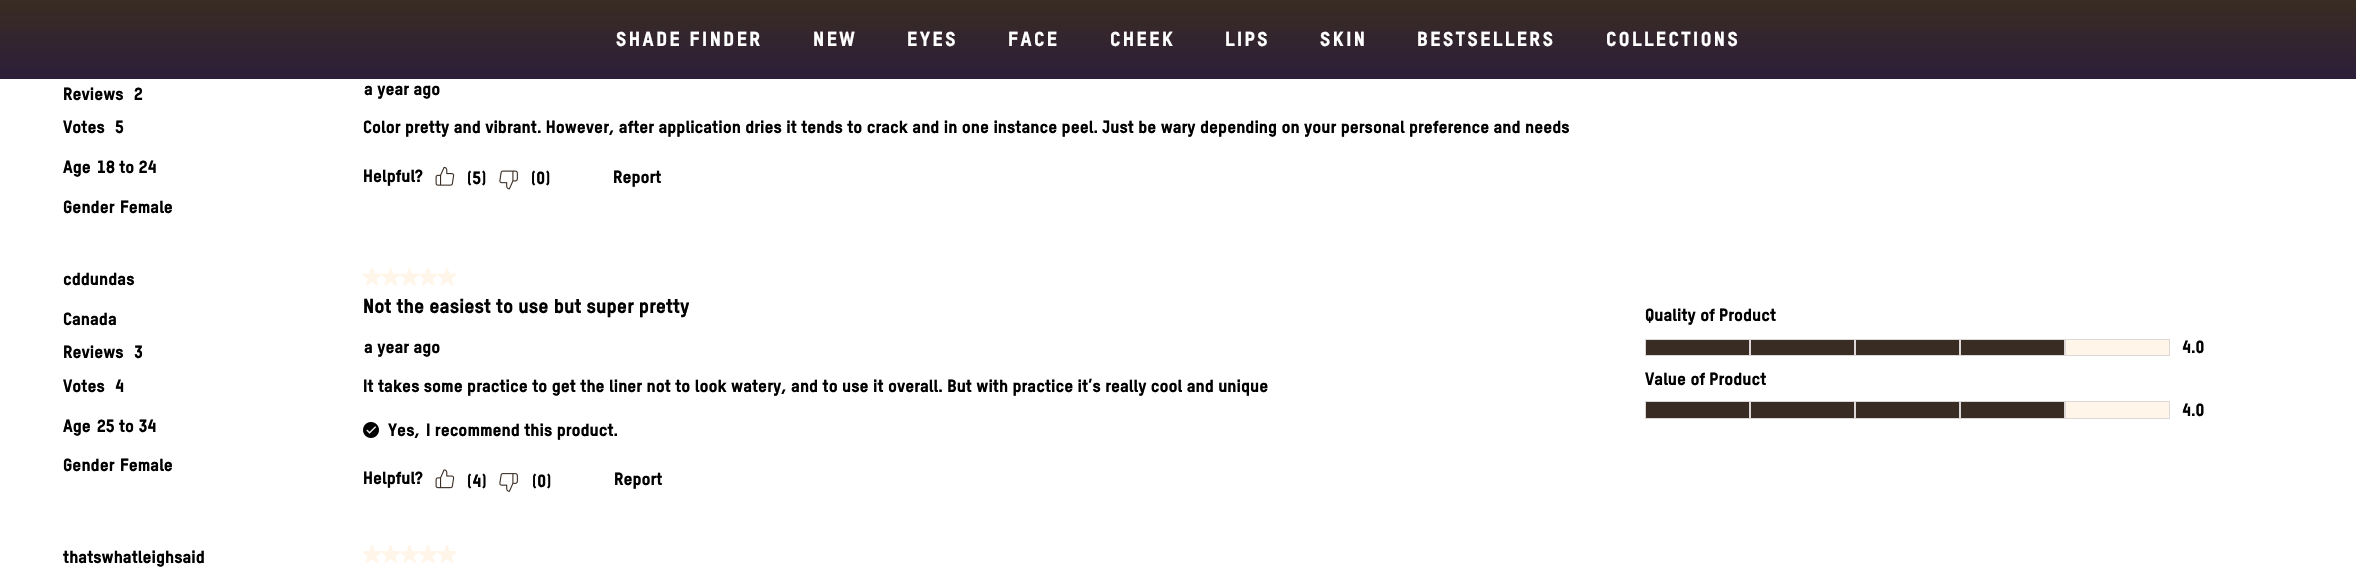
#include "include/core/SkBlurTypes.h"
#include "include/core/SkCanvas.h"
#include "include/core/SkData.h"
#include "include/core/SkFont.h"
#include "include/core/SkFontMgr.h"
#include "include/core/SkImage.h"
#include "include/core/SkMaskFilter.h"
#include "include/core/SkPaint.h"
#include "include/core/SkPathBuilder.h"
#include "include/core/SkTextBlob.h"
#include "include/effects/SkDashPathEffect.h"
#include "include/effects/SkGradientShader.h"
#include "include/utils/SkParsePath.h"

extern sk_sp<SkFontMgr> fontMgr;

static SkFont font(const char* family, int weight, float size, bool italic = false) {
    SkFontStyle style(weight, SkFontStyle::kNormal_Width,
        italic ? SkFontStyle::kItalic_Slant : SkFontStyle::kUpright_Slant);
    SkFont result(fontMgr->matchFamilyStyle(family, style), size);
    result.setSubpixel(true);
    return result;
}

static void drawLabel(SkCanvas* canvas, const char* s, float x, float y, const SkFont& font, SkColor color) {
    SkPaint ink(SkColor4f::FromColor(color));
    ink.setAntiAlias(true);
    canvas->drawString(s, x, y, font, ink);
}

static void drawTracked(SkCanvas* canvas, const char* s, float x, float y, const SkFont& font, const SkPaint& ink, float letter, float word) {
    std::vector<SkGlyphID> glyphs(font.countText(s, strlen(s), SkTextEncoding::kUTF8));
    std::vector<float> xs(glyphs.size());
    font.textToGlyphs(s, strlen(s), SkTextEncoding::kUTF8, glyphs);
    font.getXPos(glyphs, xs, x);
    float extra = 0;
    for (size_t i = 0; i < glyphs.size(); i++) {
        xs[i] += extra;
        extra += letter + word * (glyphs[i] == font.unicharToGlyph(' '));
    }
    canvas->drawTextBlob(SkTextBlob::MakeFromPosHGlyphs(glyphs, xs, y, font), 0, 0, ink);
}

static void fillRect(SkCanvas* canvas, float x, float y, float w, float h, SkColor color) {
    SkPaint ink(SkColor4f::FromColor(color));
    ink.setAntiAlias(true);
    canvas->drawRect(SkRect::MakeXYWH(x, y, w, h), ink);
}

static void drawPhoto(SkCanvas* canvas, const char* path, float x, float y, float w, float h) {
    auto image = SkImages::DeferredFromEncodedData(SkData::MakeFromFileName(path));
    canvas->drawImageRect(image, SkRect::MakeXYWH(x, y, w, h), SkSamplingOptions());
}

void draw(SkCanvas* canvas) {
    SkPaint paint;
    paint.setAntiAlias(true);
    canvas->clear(0xFFFFFFFF);
    {
        const SkColor colors[] = {0xFF2D1E3A, 0xFF392C22};
        const float stops[] = {0, 1};
        const SkPoint ends[] = {{1178, 79}, {1178, 0}};
        paint.setShader(SkGradientShader::MakeLinear(ends, colors, stops, 2, SkTileMode::kClamp));
        paint.setAlpha(255);
    }
    canvas->drawRect(SkRect::MakeXYWH(0, 0, 2356, 79), paint);
    SkFont font1 = font("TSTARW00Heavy", 900, 20);
    paint.setShader(nullptr);
    paint.setColor(0xFFFFFFFF);
    drawTracked(canvas, "SHADE FINDER", 616, 46, font1, paint, 2.5f, 0);
    drawTracked(canvas, "NEW", 813, 46, font1, paint, 2.5f, 0);
    drawTracked(canvas, "EYES", 907, 46, font1, paint, 2.5f, 0);
    drawTracked(canvas, "FACE", 1008, 46, font1, paint, 2.5f, 0);
    drawTracked(canvas, "CHEEK", 1110, 46, font1, paint, 2.5f, 0);
    drawTracked(canvas, "LIPS", 1225, 46, font1, paint, 2.5f, 0);
    drawTracked(canvas, "SKIN", 1320, 46, font1, paint, 2.5f, 0);
    drawTracked(canvas, "BESTSELLERS", 1417, 46, font1, paint, 2.5f, 0);
    drawTracked(canvas, "COLLECTIONS", 1606, 46, font1, paint, 2.5f, 0);
    SkFont font2 = font("TSTARW00Heavy", 900, 17.5f);
    drawLabel(canvas, "Reviews", 63, 100, font2, 0xFF000000);
    drawLabel(canvas, "2", 134, 100, font2, 0xFF000000);
    drawLabel(canvas, "Votes", 63, 133, font2, 0xFF000000);
    drawLabel(canvas, "5", 115, 133, font2, 0xFF000000);
    drawLabel(canvas, "Age", 63, 173, font2, 0xFF000000);
    drawLabel(canvas, "18 to 24", 97, 173, font2, 0xFF000000);
    drawLabel(canvas, "Gender", 63, 213, font2, 0xFF000000);
    drawLabel(canvas, "Female", 120, 213, font2, 0xFF000000);
    drawLabel(canvas, "a year ago", 364, 95, font2, 0xFF000000);
    drawLabel(canvas, "Color pretty and vibrant. However, after application dries it tends to crack and in one instance peel. Just be wary depending on your personal preference and needs", 363, 133, font2, 0xFF000000);
    drawLabel(canvas, "Helpful?", 363, 182, font2, 0xFF000000);
    drawPhoto(canvas, "assets/img1.png", 435, 166, 20, 20);
    drawLabel(canvas, "(5)", 467, 184, font2, 0xFF000000);
    drawPhoto(canvas, "assets/img2.png", 499, 170, 19, 20);
    drawLabel(canvas, "(0)", 531, 184, font2, 0xFF000000);
    drawLabel(canvas, "Report", 613, 183, font2, 0xFF000000);
    drawLabel(canvas, "cddundas", 63, 285, font2, 0xFF000000);
    drawLabel(canvas, "Canada", 63, 325, font2, 0xFF000000);
    drawLabel(canvas, "Reviews", 63, 358, font2, 0xFF000000);
    drawLabel(canvas, "3", 134, 358, font2, 0xFF000000);
    drawLabel(canvas, "Votes", 63, 392, font2, 0xFF000000);
    drawLabel(canvas, "4", 115, 392, font2, 0xFF000000);
    drawLabel(canvas, "Age", 63, 432, font2, 0xFF000000);
    drawLabel(canvas, "25 to 34", 97, 432, font2, 0xFF000000);
    drawLabel(canvas, "Gender", 63, 471, font2, 0xFF000000);
    drawLabel(canvas, "Female", 120, 471, font2, 0xFF000000);
    drawPhoto(canvas, "assets/img3.png", 363, 268, 18, 18);
    drawPhoto(canvas, "assets/img4.png", 381, 268, 19, 18);
    drawPhoto(canvas, "assets/img5.png", 400, 268, 19, 18);
    drawPhoto(canvas, "assets/img6.png", 419, 268, 19, 18);
    drawPhoto(canvas, "assets/img3.png", 438, 268, 18, 18);
    drawLabel(canvas, "Not the easiest to use but super pretty", 363, 313, font1, 0xFF000000);
    drawLabel(canvas, "a year ago", 364, 353, font2, 0xFF000000);
    drawLabel(canvas, "It takes some practice to get the liner not to look watery, and to use it overall. But with practice it’s really cool and unique", 363, 392, font2, 0xFF000000);
    drawPhoto(canvas, "assets/img7.png", 363, 422, 16, 16);
    drawLabel(canvas, "Yes,", 388, 436, font2, 0xFF000000);
    drawLabel(canvas, "I recommend this product.", 426, 436, font2, 0xFF000000);
    drawLabel(canvas, "Helpful?", 363, 484, font2, 0xFF000000);
    drawPhoto(canvas, "assets/img8.png", 435, 469, 20, 20);
    drawLabel(canvas, "(4)", 467, 487, font2, 0xFF000000);
    drawPhoto(canvas, "assets/img9.png", 499, 473, 19, 19);
    drawLabel(canvas, "(0)", 532, 487, font2, 0xFF000000);
    drawLabel(canvas, "Report", 614, 485, font2, 0xFF000000);
    drawLabel(canvas, "Quality of Product", 1645, 321, font2, 0xFF000000);
    fillRect(canvas, 1646, 340, 418, 15, 0xFF392C22);
    paint.setStroke(true);
    paint.setStrokeWidth(1);
    paint.setColor(0xFFDED7D7);
    canvas->drawRect(SkRect::MakeXYWH(1645.5f, 339.5f, 104, 16), paint);
    canvas->drawRect(SkRect::MakeXYWH(1750.5f, 339.5f, 104, 16), paint);
    canvas->drawRect(SkRect::MakeXYWH(1855.5f, 339.5f, 104, 16), paint);
    canvas->drawRect(SkRect::MakeXYWH(1960.5f, 339.5f, 104, 16), paint);
    paint.setStroke(false);
    paint.setColor(0xFFFFF5E8);
    canvas->drawRect(SkRect::MakeXYWH(2065.5f, 339.5f, 104, 16), paint);
    paint.setStroke(true);
    paint.setColor(0xFFDED7D7);
    canvas->drawRect(SkRect::MakeXYWH(2065.5f, 339.5f, 104, 16), paint);
    drawLabel(canvas, "4.0", 2182, 353, font2, 0xFF000000);
    drawLabel(canvas, "Value of Product", 1645, 385, font2, 0xFF000000);
    fillRect(canvas, 1646, 402, 418, 16, 0xFF392C22);
    canvas->drawRect(SkRect::MakeXYWH(1645.5f, 401.5f, 104, 17), paint);
    canvas->drawRect(SkRect::MakeXYWH(1750.5f, 401.5f, 104, 17), paint);
    canvas->drawRect(SkRect::MakeXYWH(1855.5f, 401.5f, 104, 17), paint);
    canvas->drawRect(SkRect::MakeXYWH(1960.5f, 401.5f, 104, 17), paint);
    paint.setStroke(false);
    paint.setColor(0xFFFFF5E8);
    canvas->drawRect(SkRect::MakeXYWH(2065.5f, 401.5f, 104, 17), paint);
    paint.setStroke(true);
    paint.setColor(0xFFDED7D7);
    canvas->drawRect(SkRect::MakeXYWH(2065.5f, 401.5f, 104, 17), paint);
    drawLabel(canvas, "4.0", 2182, 416, font2, 0xFF000000);
    canvas->save();
    canvas->clipRect(SkRect::MakeXYWH(63, 545, 287, 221));
    drawLabel(canvas, "thatswhatleighsaid", 63, 563, font2, 0xFF000000);
    canvas->restore();
    drawPhoto(canvas, "assets/img10.png", 363, 545, 18, 18);
    drawPhoto(canvas, "assets/img11.png", 381, 545, 19, 18);
    drawPhoto(canvas, "assets/img12.png", 400, 545, 19, 18);
    drawPhoto(canvas, "assets/img13.png", 419, 545, 19, 18);
    drawPhoto(canvas, "assets/img10.png", 438, 545, 18, 18);
}
